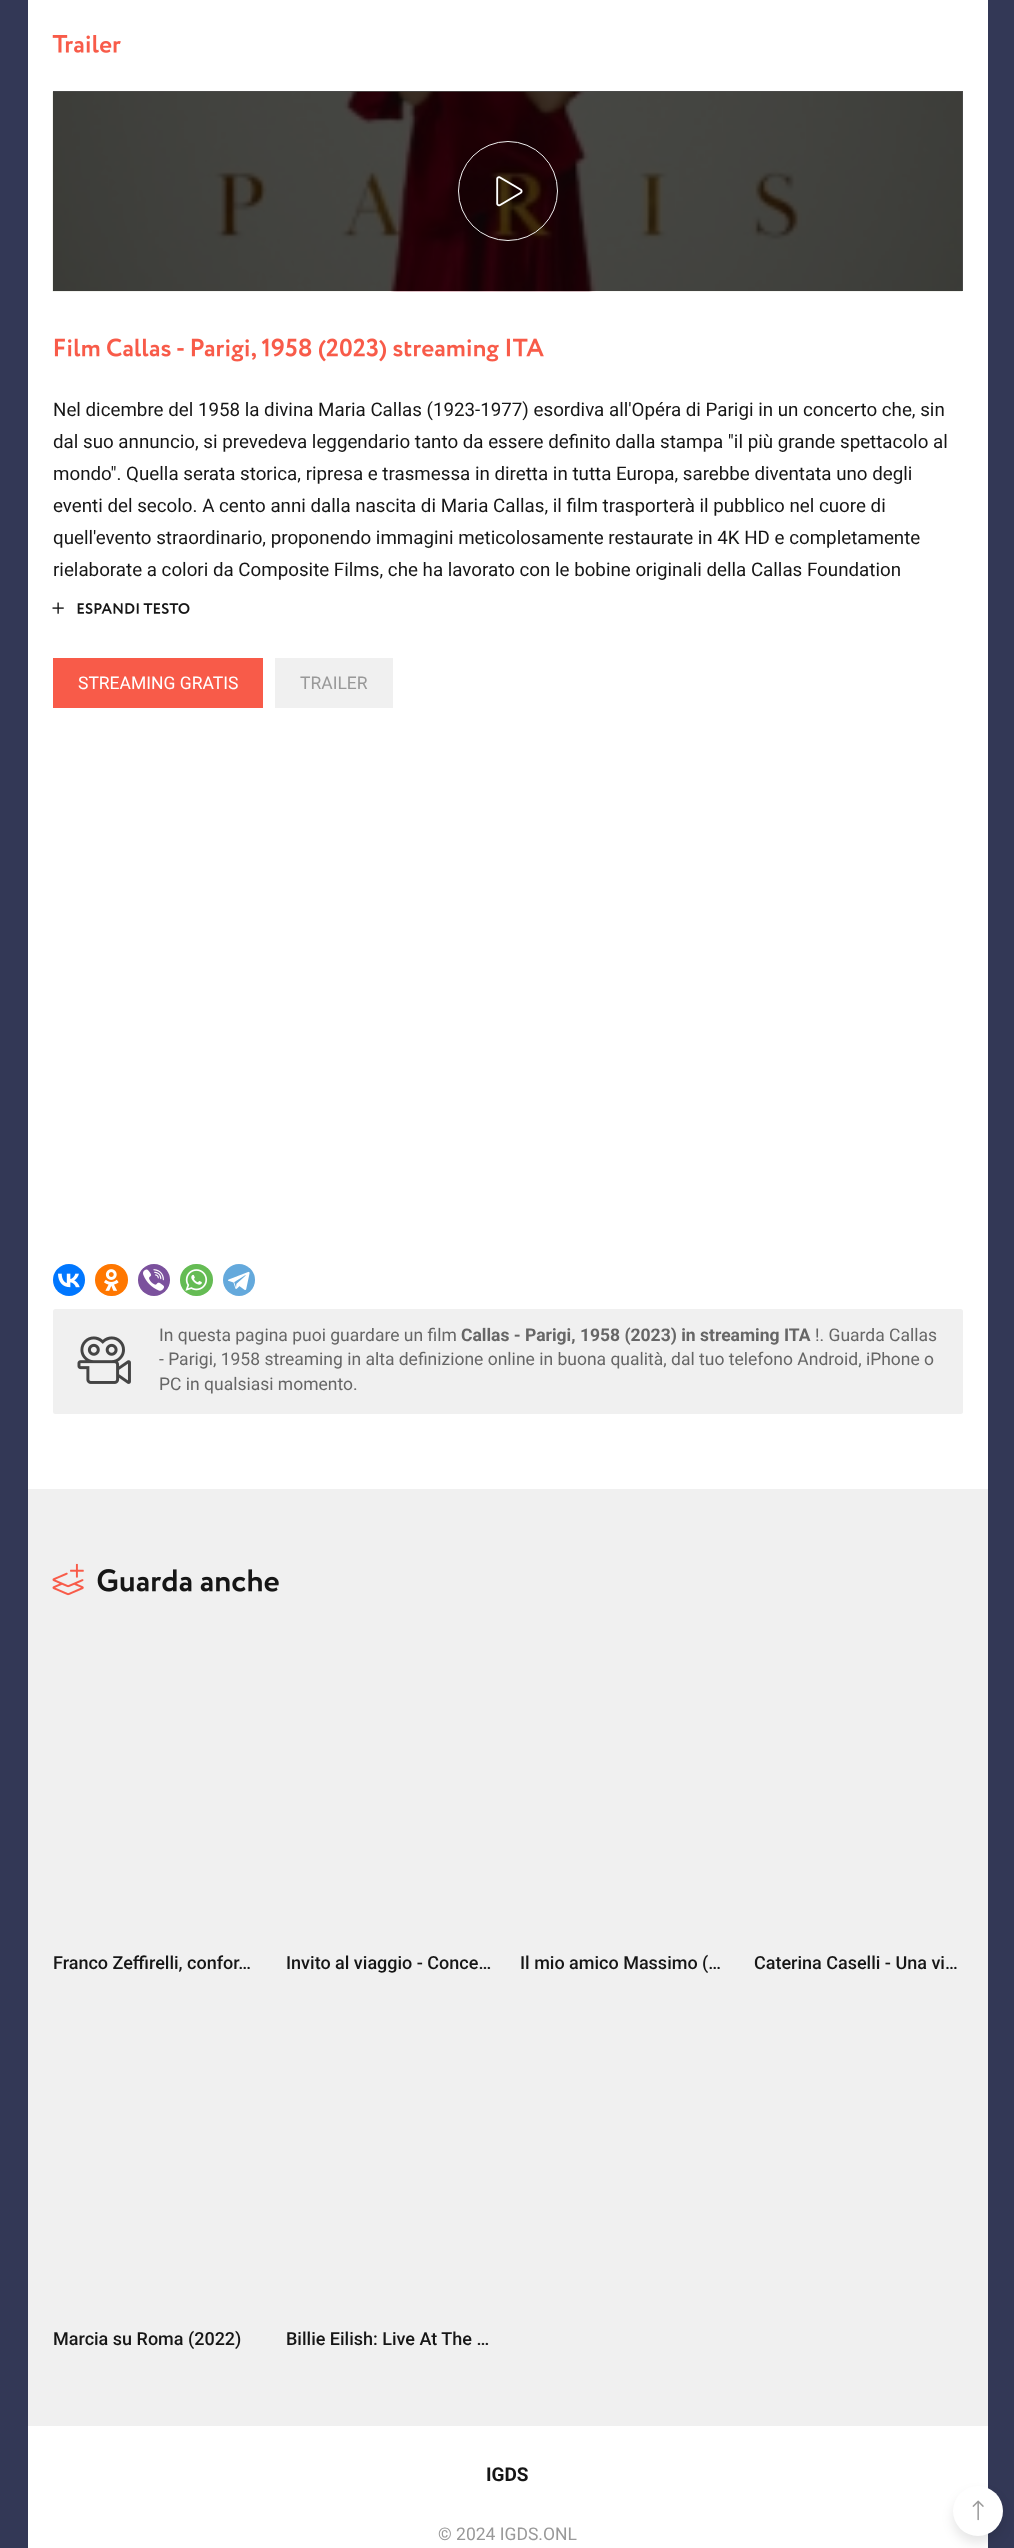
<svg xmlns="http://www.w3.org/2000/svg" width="1014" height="2548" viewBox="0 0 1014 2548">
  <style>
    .t1 { font: 18.75px Roboto; fill: #161616; }
    .t2 { font: 17.5px Roboto; fill: #fff; }
    .t3 { font: 17.5px Roboto; fill: #999; }
    .t4 { font: 17.5px Roboto; fill: #666; }
    .t5 { font: bold 17.5px Roboto; fill: #666; }
    .t6 { font: 500 18px Roboto; fill: #161616; }
    .t7 { font: bold 19px Roboto; fill: #161616; }
  </style>
  <rect width="100%" height="100%" fill="#333856"/>
  <rect x="28" y="0" width="960" height="2548" fill="#fff"/>
  <rect x="53" y="91" width="910" height="200" fill="#4d4d4d"/>
  <image x="52" y="35" width="69" height="18" href="images/1.png"/>
  <image x="52" y="91" width="911" height="201" href="images/2.png"/>
  <circle cx="508" cy="191" r="49.5" fill="none" stroke="#f0f0f0"/>
  <image x="496" y="176" width="27" height="31" href="images/3.png"/>
  <image x="54" y="338" width="490" height="24" href="images/4.png"/>
  <text x="53" y="416" class="t1">Nel dicembre del 1958 la divina Maria Callas (1923-1977) esordiva all'Opéra di Parigi in un concerto che, sin</text>
  <text x="53" y="448" class="t1">dal suo annuncio, si prevedeva leggendario tanto da essere definito dalla stampa "il più grande spettacolo al</text>
  <text x="53" y="480" class="t1">mondo". Quella serata storica, ripresa e trasmessa in diretta in tutta Europa, sarebbe diventata uno degli</text>
  <text x="53" y="512" class="t1">eventi del secolo. A cento anni dalla nascita di Maria Callas, il film trasporterà il pubblico nel cuore di</text>
  <text x="53" y="544" class="t1">quell'evento straordinario, proponendo immagini meticolosamente restaurate in 4K HD e completamente</text>
  <text x="53" y="576" class="t1">rielaborate a colori da Composite Films, che ha lavorato con le bobine originali della Callas Foundation</text>
  <image x="52" y="602" width="12" height="12" href="images/5.png"/>
  <image x="77" y="603" width="113" height="11" href="images/6.png"/>
  <rect x="53" y="658" width="210" height="50" fill="#f85b49"/>
  <text x="78" y="689" class="t2">STREAMING GRATIS</text>
  <rect x="275" y="658" width="118" height="50" fill="#f0f0f0"/>
  <text x="300" y="689" class="t3">TRAILER</text>
  <circle cx="69" cy="1280" r="16" fill="#07f"/>
  <image x="58" y="1273" width="22" height="15" href="images/7.png"/>
  <rect x="95" y="1264" width="33" height="32" rx="16" fill="#f70"/>
  <image x="104" y="1269" width="15" height="22" href="images/8.png"/>
  <circle cx="154" cy="1280" r="16" fill="#7b519d"/>
  <image x="143" y="1269" width="21" height="22" href="images/9.png"/>
  <rect x="180" y="1264" width="33" height="32" rx="16" fill="#65bc54"/>
  <image x="185" y="1269" width="23" height="22" href="images/10.png"/>
  <circle cx="239" cy="1280" r="16" fill="#64a9dc"/>
  <image x="228" y="1271" width="22" height="19" href="images/11.png"/>
  <rect x="53" y="1309" width="910" height="105" rx="2.5" fill="#f0f0f0"/>
  <text x="159" y="1341" class="t4">In questa pagina puoi guardare un film</text>
  <text x="461" y="1341" class="t5">Callas - Parigi, 1958 (2023) in streaming ITA</text>
  <text x="815" y="1341" class="t4">!. Guarda Callas</text>
  <image x="77" y="1336" width="54" height="48" href="images/12.png"/>
  <text x="159" y="1365" class="t4">- Parigi, 1958 streaming in alta definizione online in buona qualità, dal tuo telefono Android, iPhone o</text>
  <text x="159" y="1390" class="t4">PC in qualsiasi momento.</text>
  <rect x="28" y="1489" width="960" height="937" fill="#f0f0f0"/>
  <image x="52" y="1563" width="32" height="33" href="images/13.png"/>
  <image x="97" y="1569" width="182" height="23" href="images/14.png"/>
  <text x="53" y="1969" class="t6">Franco Zeffirelli, confor…</text>
  <text x="286" y="1969" class="t6">Invito al viaggio - Conce…</text>
  <text x="520" y="1969" class="t6">Il mio amico Massimo (…</text>
  <text x="754" y="1969" class="t6">Caterina Caselli - Una vi…</text>
  <text x="53" y="2345" class="t6">Marcia su Roma (2022)</text>
  <text x="286" y="2345" class="t6">Billie Eilish: Live At The …</text>
  <text x="486" y="2481" class="t7">IGDS</text>
  <text x="438" y="2540" class="t3">© 2024 IGDS.ONL</text>
  <rect x="953" y="2493" width="50" height="50" rx="25" fill="#0000001a" filter="blur(6px)"/>
  <circle cx="978" cy="2511" r="25" fill="#fff"/>
  <image x="972" y="2500" width="12" height="21" href="images/15.png"/>
</svg>
